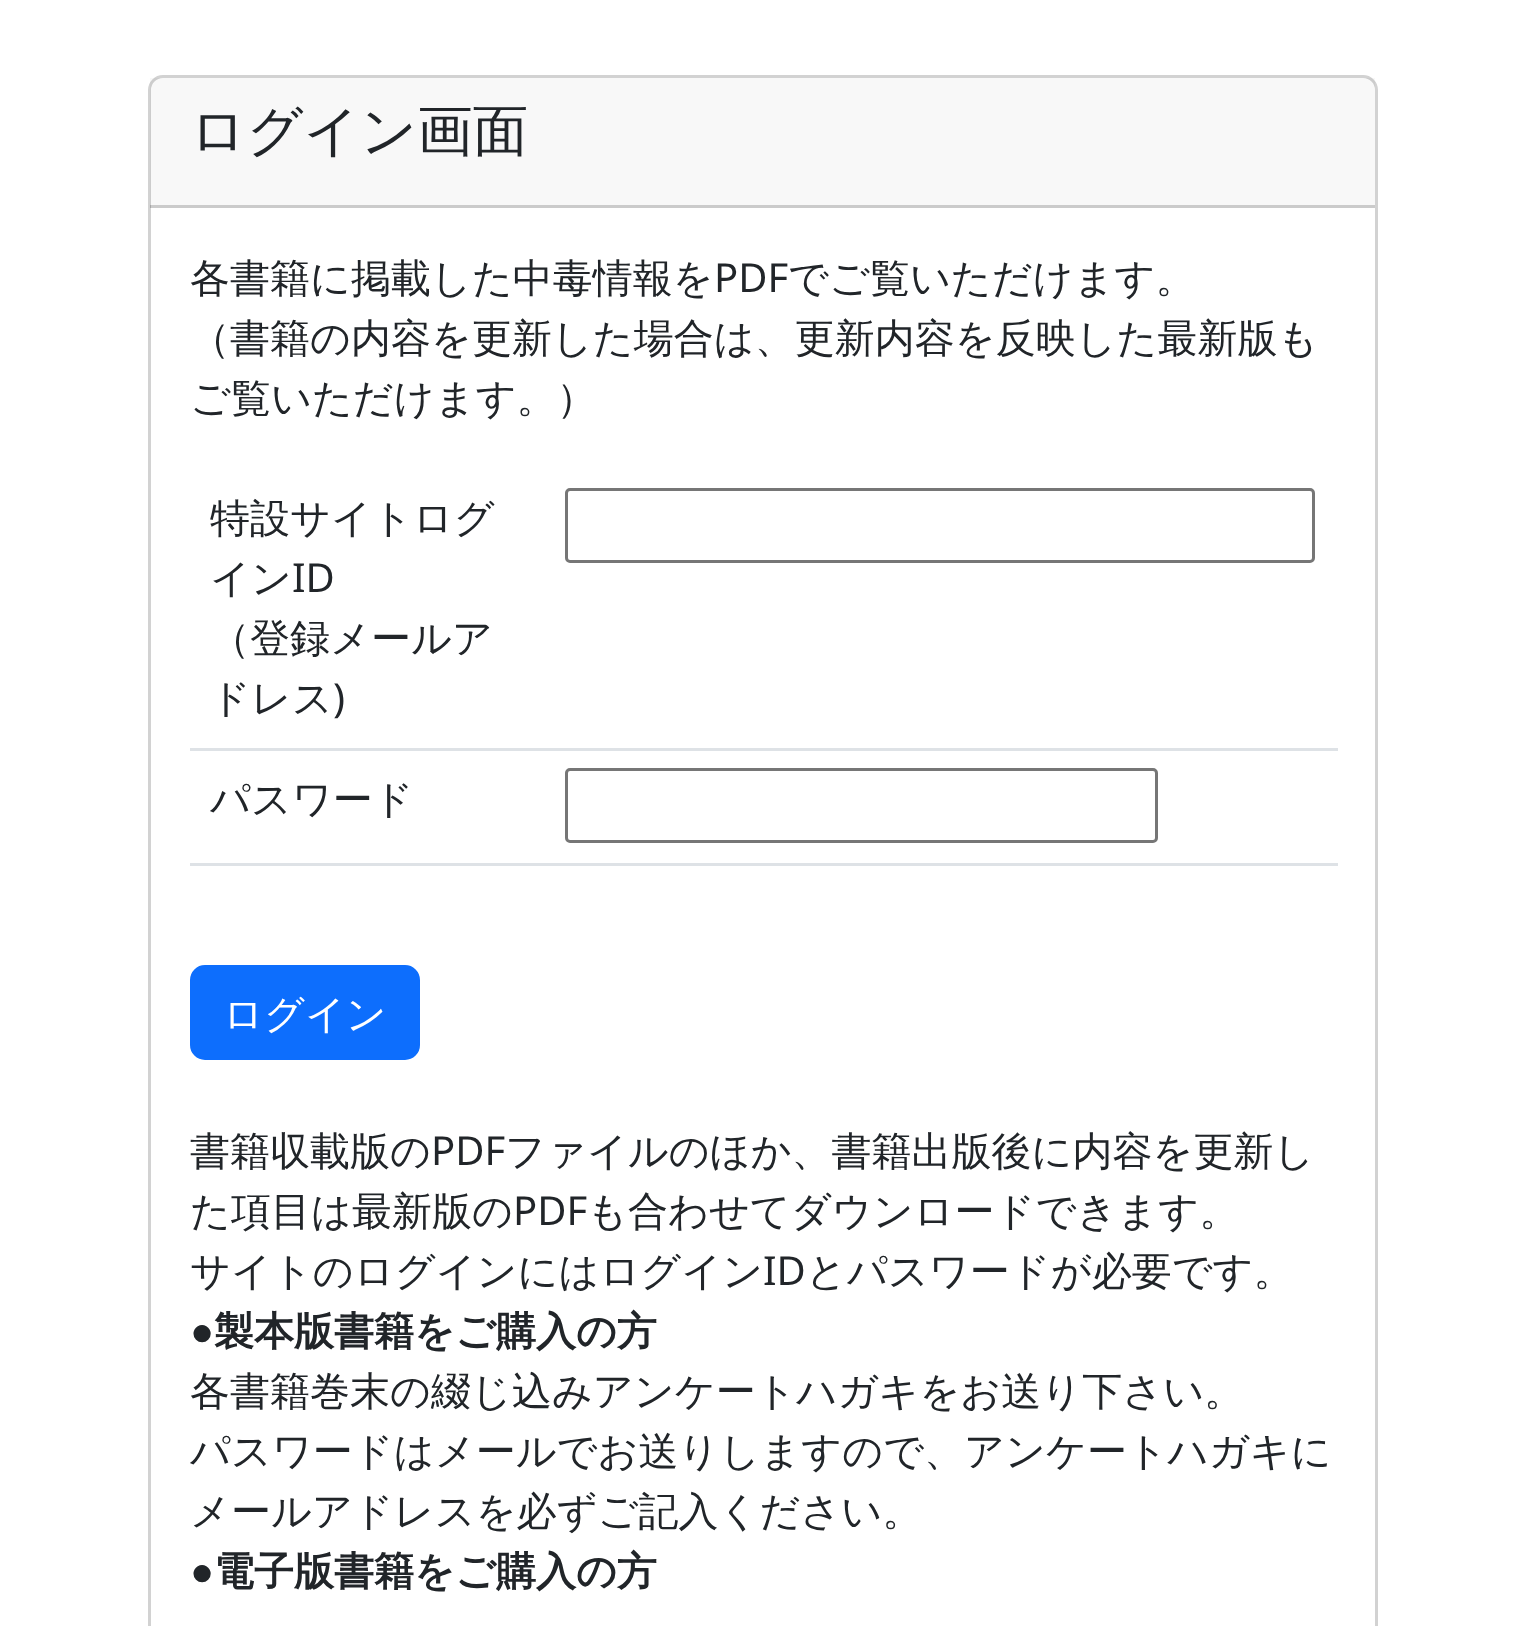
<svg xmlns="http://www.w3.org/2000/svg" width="1523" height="1626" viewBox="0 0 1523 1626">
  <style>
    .t1 { font: 500 55.5px WenQuanYi Zen Hei; fill: #212529; }
    .t2 { font: 500 40px WenQuanYi Zen Hei; fill: #212529; }
    .t3 { font: 40px Noto Sans; fill: #212529; }
    .t4 { font: 500 40px WenQuanYi Zen Hei; fill: #fff; }
    .t5 { font: bold 40px Liberation Sans; fill: #212529; }
    .t6 { font: bold 40px WenQuanYi Zen Hei; fill: #212529; }
  </style>
  <rect width="100%" height="100%" fill="#fff"/>
  <rect x="149.5" y="76.5" width="1227" height="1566" rx="13.5" fill="none" stroke="#d2d2d2" stroke-width="3"/>
  <rect x="150" y="78" width="1225" height="130" fill="#21252908"/>
  <rect x="150" y="205" width="1225" height="3" fill="#0000002e"/>
  <text x="190" y="150" class="t1">ログイン画面</text>
  <text x="190" y="292" class="t2">各書籍に掲載した中毒情報を</text>
  <text x="714" y="292" class="t3">PDF</text>
  <text x="788" y="292" class="t2">でご覧いただけます。</text>
  <text x="190" y="352" class="t2">（書籍の内容を更新した場合は、更新内容を反映した最新版も</text>
  <text x="190" y="412" class="t2">ご覧いただけます。）</text>
  <rect x="190" y="748" width="1148" height="3" fill="#dee2e6"/>
  <rect x="566.5" y="489.5" width="747" height="72" rx="3.5" fill="none" stroke="#767676" stroke-width="3"/>
  <text x="210" y="532" class="t2">特設サイトログ</text>
  <text x="210" y="592" class="t2">イン</text>
  <text x="292" y="592" class="t3">ID</text>
  <text x="210" y="652" class="t2">（登録メールア</text>
  <text x="210" y="712" class="t2">ドレス</text>
  <text x="333" y="712" class="t3">)</text>
  <rect x="190" y="863" width="1148" height="3" fill="#dee2e6"/>
  <rect x="566.5" y="769.5" width="590" height="72" rx="3.5" fill="none" stroke="#767676" stroke-width="3"/>
  <text x="210" y="813" class="t2">パスワード</text>
  <rect x="191.5" y="966.5" width="227" height="92" rx="13.5" fill="#0d6efd" stroke="#0d6efd" stroke-width="3"/>
  <text x="223" y="1028" class="t4">ログイン</text>
  <text x="190" y="1165" class="t2">書籍収載版の</text>
  <text x="431" y="1165" class="t3">PDF</text>
  <text x="505" y="1165" class="t2">ファイルのほか、書籍出版後に内容を更新し</text>
  <text x="190" y="1225" class="t2">た項目は最新版の</text>
  <text x="513" y="1225" class="t3">PDF</text>
  <text x="587" y="1225" class="t2">も合わせてダウンロードできます。</text>
  <text x="190" y="1285" class="t2">サイトのログインにはログイン</text>
  <text x="763" y="1285" class="t3">ID</text>
  <text x="806" y="1285" class="t2">とパスワードが必要です。</text>
  <text x="190" y="1345" class="t5">●</text>
  <text x="214" y="1345" class="t6">製本版書籍をご購入の方</text>
  <text x="190" y="1405" class="t2">各書籍巻末の綴じ込みアンケートハガキをお送り下さい。</text>
  <text x="190" y="1465" class="t2">パスワードはメールでお送りしますので、アンケートハガキに</text>
  <text x="190" y="1525" class="t2">メールアドレスを必ずご記入ください。</text>
  <text x="190" y="1585" class="t5">●</text>
  <text x="214" y="1585" class="t6">電子版書籍をご購入の方</text>
</svg>
